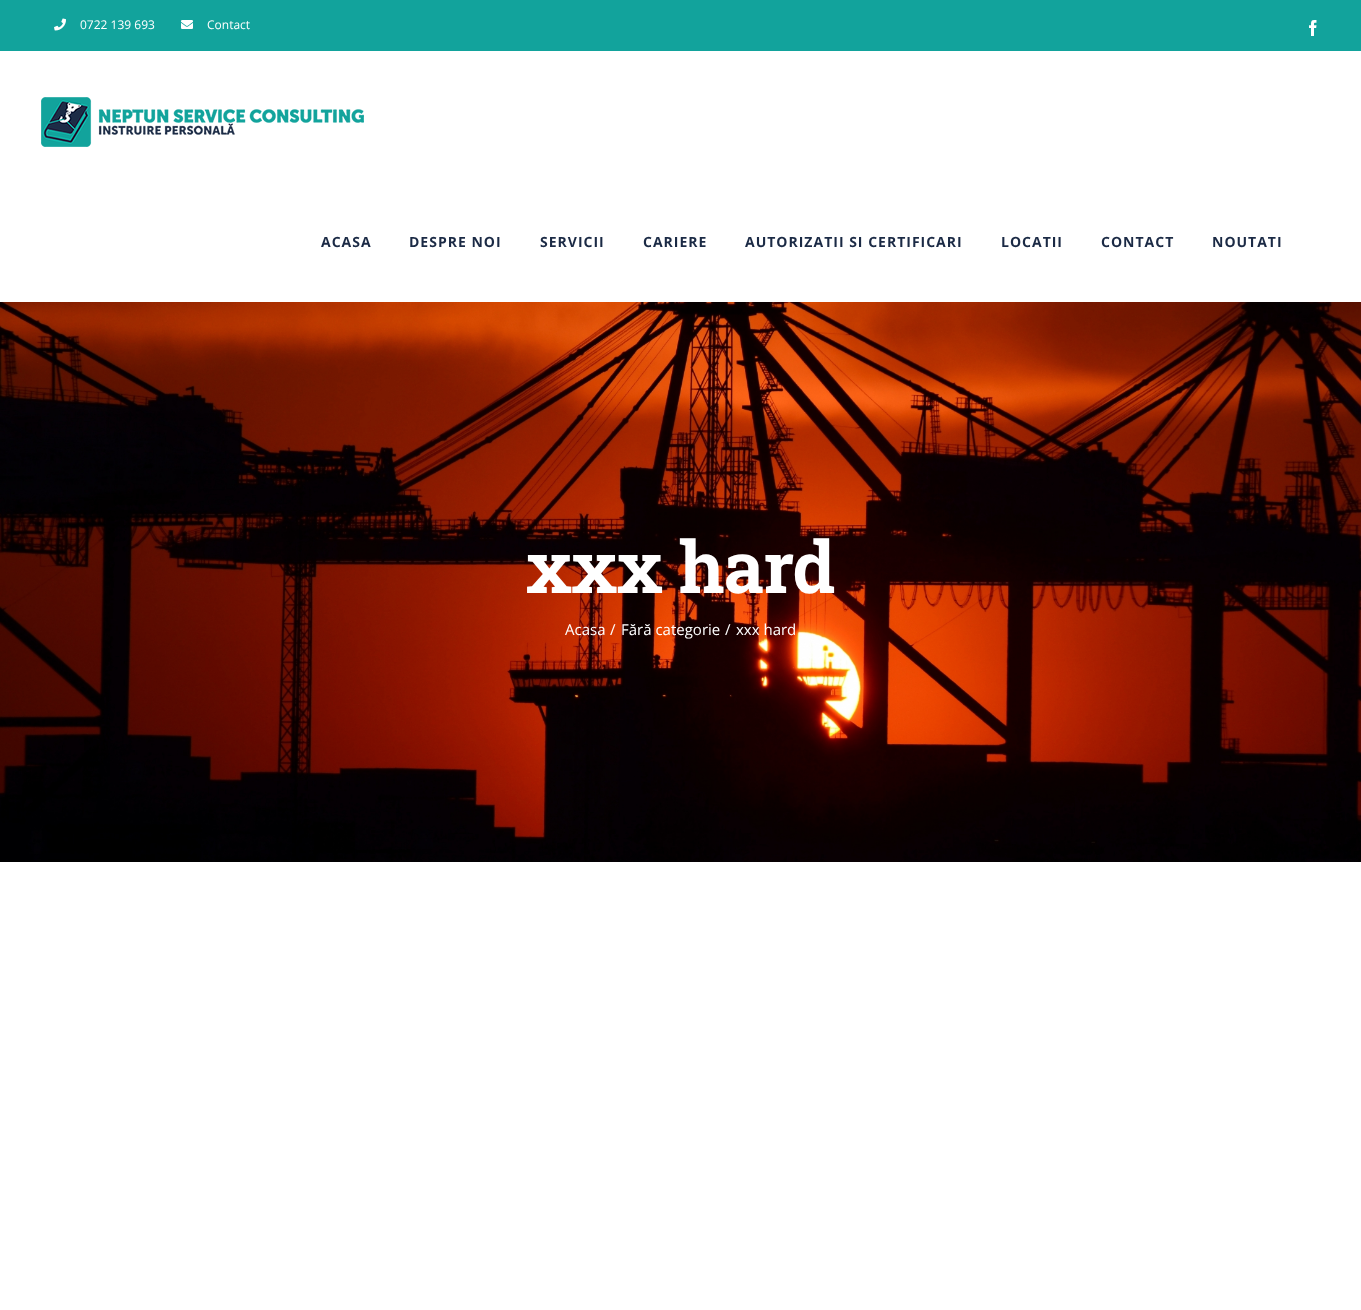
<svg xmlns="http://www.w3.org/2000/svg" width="1361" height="1310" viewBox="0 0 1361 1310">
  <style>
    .t1 { font: 12px Open Sans; fill: #fff; }
    .t2 { font: bold 14px Open Sans; letter-spacing: 1px; fill: #1b2a45; }
    .t3 { font: bold 72px Roboto Slab; letter-spacing: -1px; fill: #fff; }
    .t4 { font: 15px Open Sans; fill: #fff; }
  </style>
  <rect width="100%" height="100%" fill="#fff"/>
  <rect x="0" y="0" width="1361" height="51" fill="#12a39c"/>
  <image x="54" y="18" width="12" height="13" href="images/1.png"/>
  <text x="80" y="29" class="t1">0722 139 693</text>
  <image x="181" y="20" width="12" height="9" href="images/2.png"/>
  <text x="207" y="29" class="t1">Contact</text>
  <image x="1309" y="20" width="8" height="16" href="images/3.png"/>
  <image x="41" y="97" width="323" height="50" href="images/4.png"/>
  <text x="321" y="247" class="t2">ACASA</text>
  <text x="409" y="247" class="t2">DESPRE NOI</text>
  <text x="540" y="247" class="t2">SERVICII</text>
  <text x="643" y="247" class="t2">CARIERE</text>
  <text x="745" y="247" class="t2">AUTORIZATII SI CERTIFICARI</text>
  <text x="1001" y="247" class="t2">LOCATII</text>
  <text x="1101" y="247" class="t2">CONTACT</text>
  <text x="1212" y="247" class="t2">NOUTATI</text>
  <image x="0" y="302" width="1361" height="560" href="images/5.png"/>
  <text x="526" y="593" class="t3">xxx hard</text>
  <text x="565" y="635" class="t4">Acasa</text>
  <text x="610" y="635" class="t4">/</text>
  <text x="621" y="635" class="t4">Fără categorie</text>
  <text x="725" y="635" class="t4">/</text>
  <text x="736" y="635" class="t4">xxx hard</text>
</svg>
